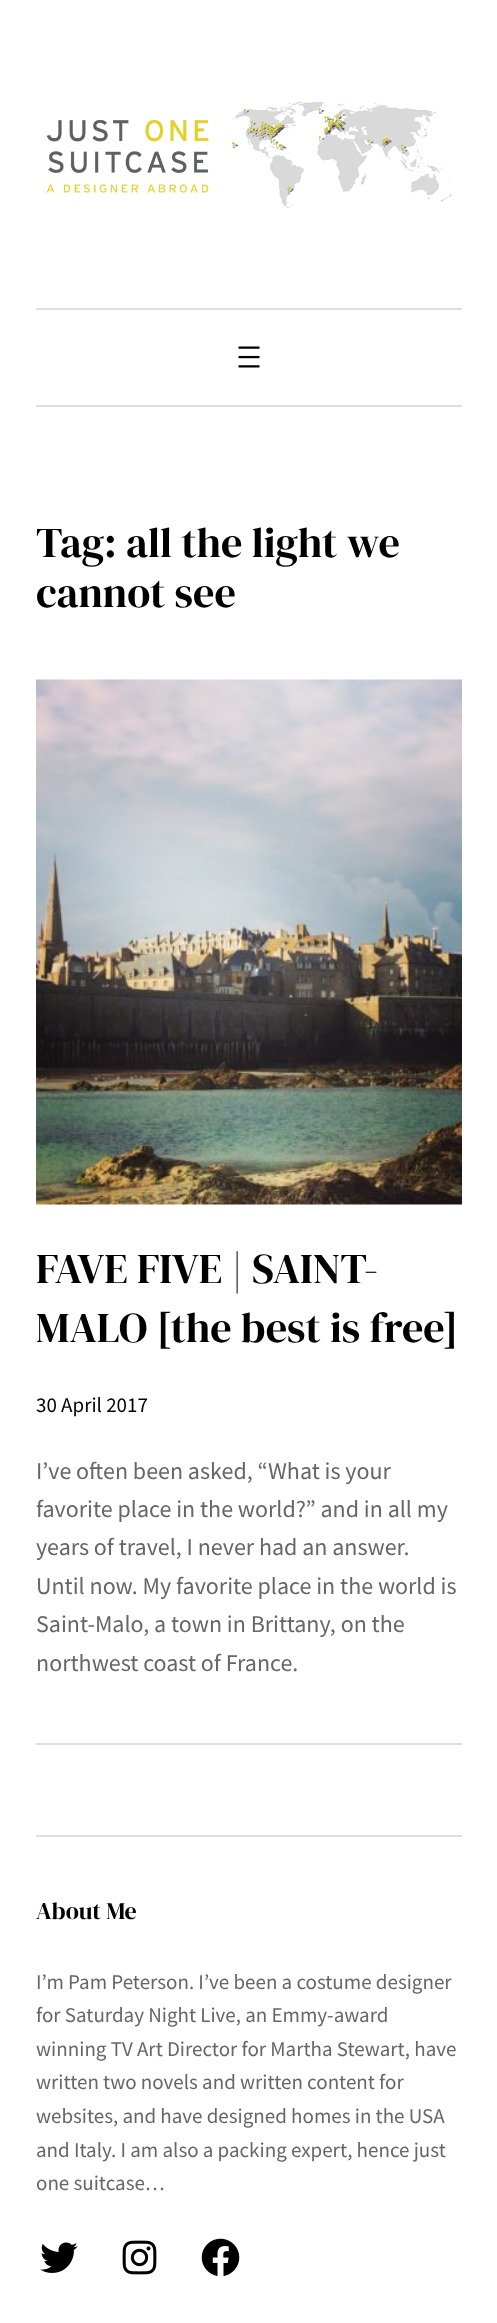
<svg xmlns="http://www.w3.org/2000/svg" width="497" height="2323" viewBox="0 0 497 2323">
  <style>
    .t1 { font: 42.25px DM Serif Display; fill: #000; }
    .t2 { font: 21px Source Sans Pro; fill: #000; }
    .t3 { font: 24px Source Sans Pro; fill: #666; }
    .t4 { font: 24px DM Serif Display; fill: #000; }
    .t5 { font: 21px Source Sans Pro; fill: #666; }
  </style>
  <rect width="100%" height="100%" fill="#fff"/>
  <image x="46" y="101" width="414" height="107" href="images/1.png"/>
  <rect x="36" y="308" width="426" height="2" fill="#dedede"/>
  <rect x="36" y="405" width="426" height="2" fill="#dedede"/>
  <image x="238" y="346" width="22" height="22" href="images/2.png"/>
  <text x="36" y="557" class="t1">Tag: all the light we</text>
  <text x="36" y="607" class="t1">cannot see</text>
  <rect x="36" y="1743" width="426" height="2" fill="#dedede"/>
  <image x="36" y="679" width="426" height="526" href="images/3.png"/>
  <text x="36" y="1283" class="t1">FAVE FIVE | SAINT-</text>
  <text x="36" y="1342" class="t1">MALO [the best is free]</text>
  <text x="36" y="1412" class="t2">30 April 2017</text>
  <text x="36" y="1479" class="t3">I’ve often been asked, “What is your</text>
  <text x="36" y="1517" class="t3">favorite place in the world?” and in all my</text>
  <text x="36" y="1555" class="t3">years of travel, I never had an answer.</text>
  <text x="36" y="1594" class="t3">Until now. My favorite place in the world is</text>
  <text x="36" y="1632" class="t3">Saint-Malo, a town in Brittany, on the</text>
  <text x="36" y="1671" class="t3">northwest coast of France.</text>
  <rect x="36" y="1835" width="426" height="2" fill="#dedede"/>
  <text x="36" y="1919" class="t4">About Me</text>
  <text x="36" y="1989" class="t5">I’m Pam Peterson. I’ve been a costume designer</text>
  <text x="36" y="2022" class="t5">for Saturday Night Live, an Emmy-award</text>
  <text x="36" y="2056" class="t5">winning TV Art Director for Martha Stewart, have</text>
  <text x="36" y="2089" class="t5">written two novels and written content for</text>
  <text x="36" y="2123" class="t5">websites, and have designed homes in the USA</text>
  <text x="36" y="2157" class="t5">and Italy. I am also a packing expert, hence just</text>
  <text x="36" y="2190" class="t5">one suitcase…</text>
  <image x="40" y="2242" width="38" height="31" href="images/4.png"/>
  <image x="122" y="2240" width="35" height="35" href="images/5.png"/>
  <image x="201" y="2238" width="39" height="38" href="images/6.png"/>
</svg>
